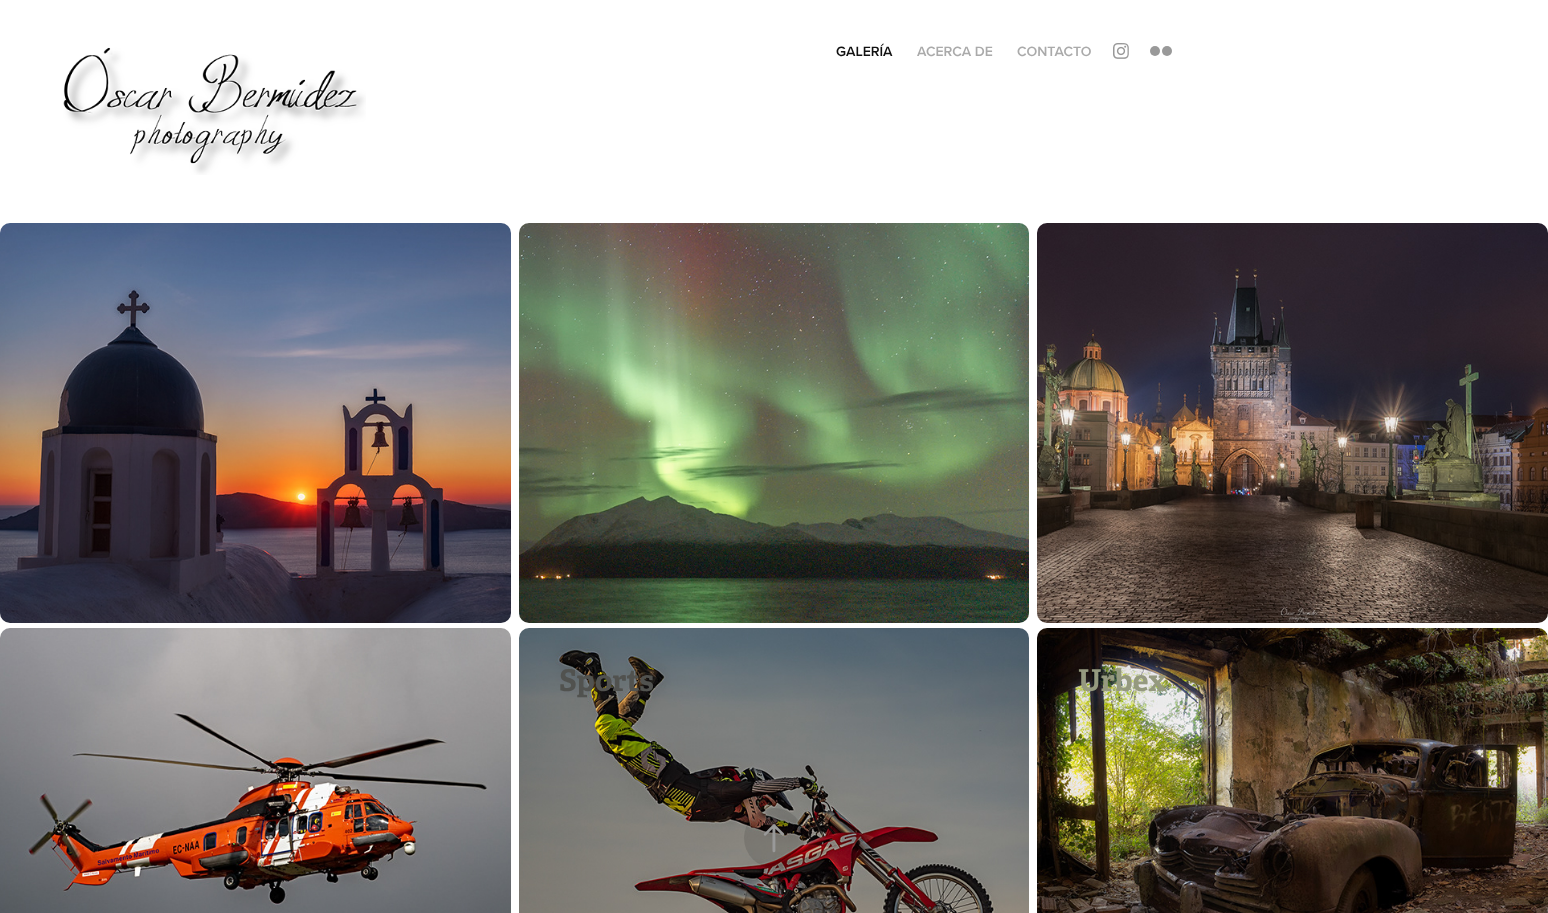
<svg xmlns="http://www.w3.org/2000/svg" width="1548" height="913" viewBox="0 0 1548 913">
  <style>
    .t1 { font: 600 14px Proxima Nova; fill: #111; }
    .t2 { font: 600 14px Proxima Nova; fill: #aaa; }
    .t3 { font: bold 30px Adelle; fill: #51524f; }
    .t4 { font: bold 30px Adelle; fill: #95997f; }
  </style>
  <rect width="100%" height="100%" fill="#fff"/>
  <image x="63" y="47" width="303" height="128" href="images/1.png"/>
  <text x="836" y="56" class="t1">GALERÍA</text>
  <text x="917" y="56" class="t2">ACERCA DE</text>
  <text x="1017" y="56" class="t2">CONTACTO</text>
  <image x="1113" y="43" width="16" height="16" href="images/2.png"/>
  <circle cx="1155" cy="51" r="5" fill="#999"/>
  <circle cx="1167" cy="51" r="5" fill="#999"/>
  <image x="0" y="223" width="511" height="400" href="images/3.png"/>
  <image x="519" y="223" width="510" height="400" href="images/4.png"/>
  <image x="1037" y="223" width="511" height="400" href="images/5.png"/>
  <image x="0" y="628" width="511" height="285" href="images/6.png"/>
  <image x="519" y="628" width="510" height="285" href="images/7.png"/>
  <text x="559" y="691" class="t3">Sports</text>
  <image x="1037" y="628" width="511" height="285" href="images/8.png"/>
  <text x="1078" y="691" class="t4">Urbex</text>
  <circle cx="774" cy="838" r="30" fill="#0000001c"/>
  <image x="763" y="824" width="22" height="29" href="images/9.png"/>
</svg>
